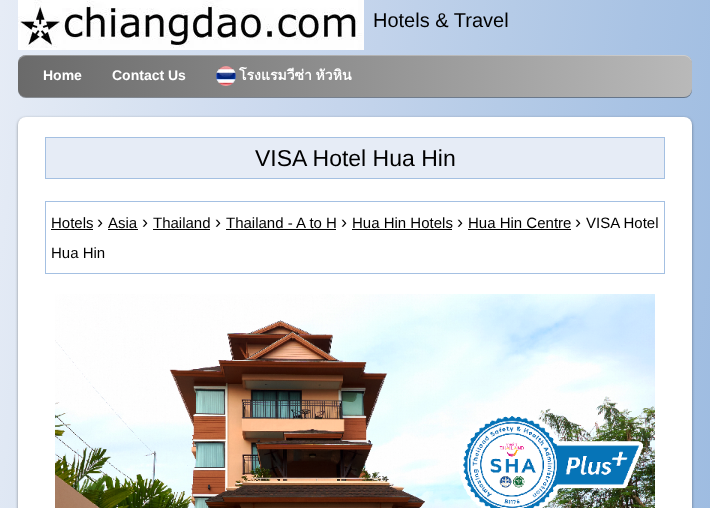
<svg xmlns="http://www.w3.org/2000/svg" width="710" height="508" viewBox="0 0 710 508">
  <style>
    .t1 { font: 20px Liberation Sans; fill: #000; }
    .t2 { font: bold 14px Liberation Sans; fill: #fff; }
    .t3 { font: bold 14px Loma; fill: #fff; }
    .t4 { font: 23px Liberation Sans; fill: #000; }
    .t5 { font: 15px Liberation Sans; fill: #000; }
    .t6 { font: 18px Liberation Sans; fill: #000; }
  </style>
  <defs>
    <linearGradient id="g1" gradientUnits="userSpaceOnUse" x1="-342" y1="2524" x2="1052" y2="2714"><stop offset="0" stop-color="#e6ecf6"/><stop offset="0.09" stop-color="#dae4f2"/><stop offset="0.18" stop-color="#cedbef"/><stop offset="0.27" stop-color="#c2d3eb"/><stop offset="0.36" stop-color="#b5cbe7"/><stop offset="0.45" stop-color="#a9c3e4"/><stop offset="0.55" stop-color="#9ebce1"/><stop offset="0.64" stop-color="#92b4de"/><stop offset="0.73" stop-color="#84abdb"/><stop offset="0.82" stop-color="#76a3d7"/><stop offset="0.91" stop-color="#669ad4"/><stop offset="1" stop-color="#5692d0"/></linearGradient>
    <linearGradient id="g2" gradientUnits="userSpaceOnUse" x1="692" y1="76" x2="18" y2="76"><stop offset="0" stop-color="#b9b9b9"/><stop offset="1" stop-color="#6a6a6a"/></linearGradient>
  </defs>
  <rect width="100%" height="100%" fill="#fff"/>
  <rect x="0" y="0" width="710" height="508" fill="url(#g1)"/>
  <image x="18" y="0" width="346" height="50" href="images/1.png"/>
  <text x="373" y="27" class="t1">Hotels &amp; Travel</text>
  <rect x="18" y="56" width="674" height="42" rx="8" fill="#00000066" filter="blur(0.5px)"/>
  <rect x="18" y="55" width="674" height="42" rx="8" fill="url(#g2)"/>
  <path d="M26 56H684C688 56 692 60 692 64V63C692 59 688 55 684 55H26C22 55 18 59 18 63V64C18 60 22 56 26 56Z" fill="#ffffff4d"/>
  <text x="43" y="80" class="t2">Home</text>
  <text x="112" y="80" class="t2">Contact Us</text>
  <image x="216" y="66" width="20" height="20" href="images/2.png"/>
  <text x="239" y="80" word-spacing="-1" class="t3">โรงแรมวีซ่า หัวหิน</text>
  <rect x="18" y="118" width="674" height="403" rx="8" fill="#00000066" filter="blur(1.5px)"/>
  <rect x="18" y="117" width="674" height="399" rx="8" fill="#fff"/>
  <rect x="45.5" y="137.5" width="619" height="41" fill="#e6ecf6" stroke="#a4c0e2"/>
  <text x="255" y="166" class="t4">VISA Hotel Hua Hin</text>
  <rect x="45.5" y="201.5" width="619" height="72" fill="none" stroke="#a4c0e2"/>
  <text x="51" y="228" class="t5">Hotels</text>
  <rect x="51" y="229" width="42" height="1" fill="#000"/>
  <text x="97" y="228" class="t6">›</text>
  <text x="108" y="228" class="t5">Asia</text>
  <rect x="108" y="229" width="30" height="1" fill="#000"/>
  <text x="142" y="228" class="t6">›</text>
  <text x="153" y="228" class="t5">Thailand</text>
  <rect x="153" y="229" width="57" height="1" fill="#000"/>
  <text x="215" y="228" class="t6">›</text>
  <text x="226" y="228" class="t5">Thailand - A to H</text>
  <rect x="226" y="229" width="110" height="1" fill="#000"/>
  <text x="341" y="228" class="t6">›</text>
  <text x="352" y="228" class="t5">Hua Hin Hotels</text>
  <rect x="352" y="229" width="100" height="1" fill="#000"/>
  <text x="457" y="228" class="t6">›</text>
  <text x="468" y="228" class="t5">Hua Hin Centre</text>
  <rect x="468" y="229" width="103" height="1" fill="#000"/>
  <text x="575" y="228" class="t6">›</text>
  <text x="586" y="228" class="t5">VISA Hotel</text>
  <text x="51" y="258" class="t5">Hua Hin</text>
  <image x="55" y="294" width="600" height="214" href="images/3.png"/>
</svg>
